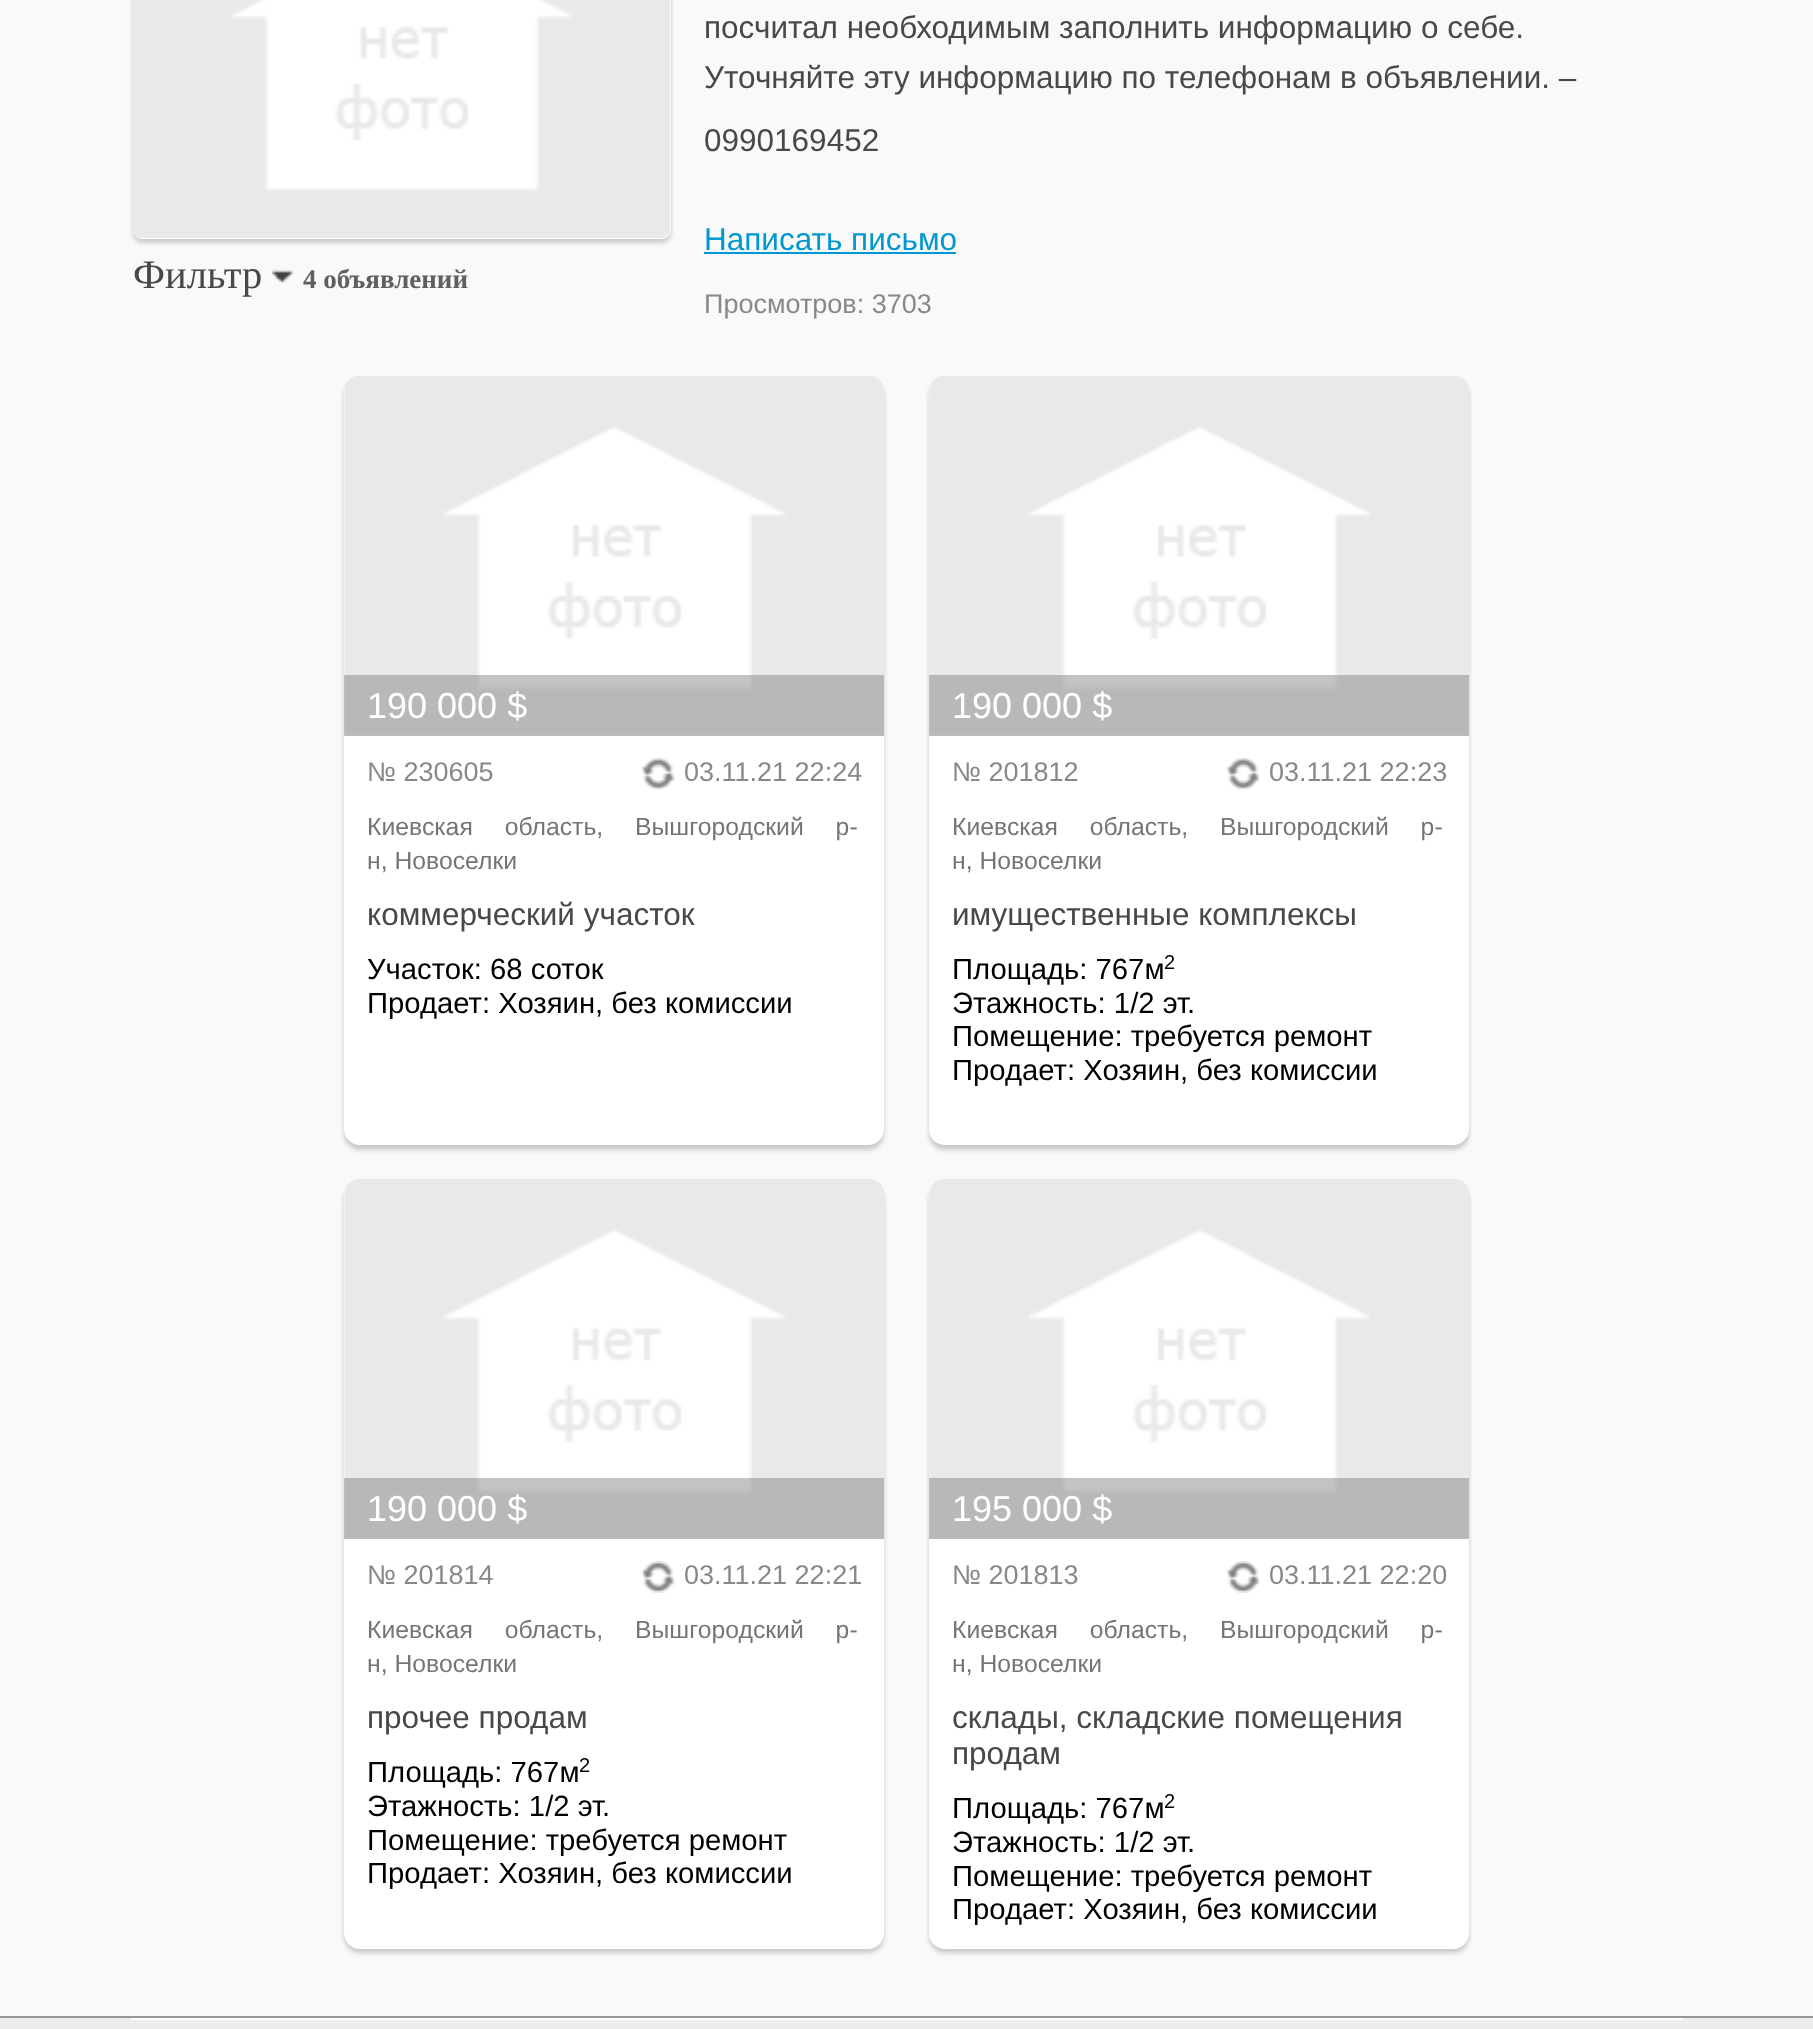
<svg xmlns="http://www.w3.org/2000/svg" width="1813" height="2029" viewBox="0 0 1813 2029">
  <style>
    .t1 { font: 40.5px Liberation Serif; fill: #484848; }
    .t2 { font: bold 27px Liberation Serif; fill: #5f5f5f; }
    .t3 { font: 31.5px Liberation Sans; fill: #484848; }
    .t4 { font: 31.5px Liberation Sans; fill: #0098d0; }
    .t5 { font: 27px Liberation Sans; fill: #888; }
    .t6 { font: 36px Liberation Sans; fill: #fff; }
    .t7 { font: 24.75px Liberation Sans; fill: #757575; }
    .t8 { font: 29.25px Liberation Sans; fill: #000; }
    .t9 { font: 20px Liberation Sans; fill: #000; }
  </style>
  <rect width="100%" height="100%" fill="#f9f9f9"/>
  <rect x="133" y="-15" width="538" height="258" rx="9" fill="#cacaca" filter="blur(2px)"/>
  <rect x="133" y="-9" width="538" height="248" rx="9" fill="#fff"/>
  <image x="133" y="0" width="538" height="238" href="images/1.png"/>
  <text x="133" y="288" class="t1">Фильтр</text>
  <image x="272" y="269" width="21" height="15" href="images/2.png"/>
  <text x="303" y="288" class="t2">4 объявлений</text>
  <text x="704" y="38" class="t3">посчитал необходимым заполнить информацию о себе.</text>
  <text x="704" y="88" class="t3">Уточняйте эту информацию по телефонам в объявлении. –</text>
  <text x="704" y="151" class="t3">0990169452</text>
  <text x="704" y="250" class="t4">Написать письмо</text>
  <rect x="704" y="252" width="252" height="2" fill="#0098d0"/>
  <text x="704" y="313" class="t5">Просмотров: 3703</text>
  <rect x="344" y="380" width="540" height="770" rx="16" fill="#cacaca" filter="blur(2px)"/>
  <rect x="344" y="376" width="540" height="769" rx="16" fill="#fff"/>
  <image x="344" y="376" width="540" height="360" href="images/3.png"/>
  <rect x="344" y="675" width="540" height="61" fill="#88888880"/>
  <text x="367" y="718" class="t6">190 000 $</text>
  <text x="367" y="781" class="t5">№ 230605</text>
  <image x="641" y="758" width="34" height="32" href="images/4.png"/>
  <text x="684" y="781" class="t5">03.11.21 22:24</text>
  <text x="367" y="835" word-spacing="25" class="t7">Киевская область, Вышгородский р-</text>
  <text x="367" y="869" class="t7">н, Новоселки</text>
  <text x="367" y="925" class="t3">коммерческий участок</text>
  <text x="367" y="979" class="t8">Участок: 68 соток</text>
  <text x="367" y="1013" class="t8">Продает: Хозяин, без комиссии</text>
  <rect x="929" y="380" width="540" height="770" rx="16" fill="#cacaca" filter="blur(2px)"/>
  <rect x="929" y="376" width="540" height="769" rx="16" fill="#fff"/>
  <image x="929" y="376" width="540" height="360" href="images/3.png"/>
  <rect x="929" y="675" width="540" height="61" fill="#88888880"/>
  <text x="952" y="718" class="t6">190 000 $</text>
  <text x="952" y="781" class="t5">№ 201812</text>
  <image x="1226" y="758" width="34" height="32" href="images/4.png"/>
  <text x="1269" y="781" class="t5">03.11.21 22:23</text>
  <text x="952" y="835" word-spacing="25" class="t7">Киевская область, Вышгородский р-</text>
  <text x="952" y="869" class="t7">н, Новоселки</text>
  <text x="952" y="925" class="t3">имущественные комплексы</text>
  <text x="952" y="979" class="t8">Площадь: 767м</text>
  <text x="1164" y="969" class="t9">2</text>
  <text x="952" y="1013" class="t8">Этажность: 1/2 эт.</text>
  <text x="952" y="1046" class="t8">Помещение: требуется ремонт</text>
  <text x="952" y="1080" class="t8">Продает: Хозяин, без комиссии</text>
  <rect x="344" y="1184" width="540" height="769" rx="16" fill="#cacaca" filter="blur(2px)"/>
  <rect x="344" y="1179" width="540" height="770" rx="16" fill="#fff"/>
  <image x="344" y="1179" width="540" height="360" href="images/5.png"/>
  <rect x="344" y="1478" width="540" height="61" fill="#88888880"/>
  <text x="367" y="1521" class="t6">190 000 $</text>
  <text x="367" y="1584" class="t5">№ 201814</text>
  <image x="641" y="1561" width="34" height="32" href="images/6.png"/>
  <text x="684" y="1584" class="t5">03.11.21 22:21</text>
  <text x="367" y="1638" word-spacing="25" class="t7">Киевская область, Вышгородский р-</text>
  <text x="367" y="1672" class="t7">н, Новоселки</text>
  <text x="367" y="1728" class="t3">прочее продам</text>
  <text x="367" y="1782" class="t8">Площадь: 767м</text>
  <text x="579" y="1772" class="t9">2</text>
  <text x="367" y="1816" class="t8">Этажность: 1/2 эт.</text>
  <text x="367" y="1850" class="t8">Помещение: требуется ремонт</text>
  <text x="367" y="1883" class="t8">Продает: Хозяин, без комиссии</text>
  <rect x="929" y="1184" width="540" height="769" rx="16" fill="#cacaca" filter="blur(2px)"/>
  <rect x="929" y="1179" width="540" height="770" rx="16" fill="#fff"/>
  <image x="929" y="1179" width="540" height="360" href="images/5.png"/>
  <rect x="929" y="1478" width="540" height="61" fill="#88888880"/>
  <text x="952" y="1521" class="t6">195 000 $</text>
  <text x="952" y="1584" class="t5">№ 201813</text>
  <image x="1226" y="1561" width="34" height="32" href="images/6.png"/>
  <text x="1269" y="1584" class="t5">03.11.21 22:20</text>
  <text x="952" y="1638" word-spacing="25" class="t7">Киевская область, Вышгородский р-</text>
  <text x="952" y="1672" class="t7">н, Новоселки</text>
  <text x="952" y="1728" class="t3">склады, cкладские помещения</text>
  <text x="952" y="1764" class="t3">продам</text>
  <text x="952" y="1818" class="t8">Площадь: 767м</text>
  <text x="1164" y="1808" class="t9">2</text>
  <text x="952" y="1852" class="t8">Этажность: 1/2 эт.</text>
  <text x="952" y="1886" class="t8">Помещение: требуется ремонт</text>
  <text x="952" y="1919" class="t8">Продает: Хозяин, без комиссии</text>
  <image x="0" y="2018" width="1813" height="11" href="images/7.png"/>
  <rect x="0" y="2016" width="1813" height="2" fill="#969696"/>
  <rect x="131" y="2018" width="1552" height="2" fill="#fff"/>
</svg>
